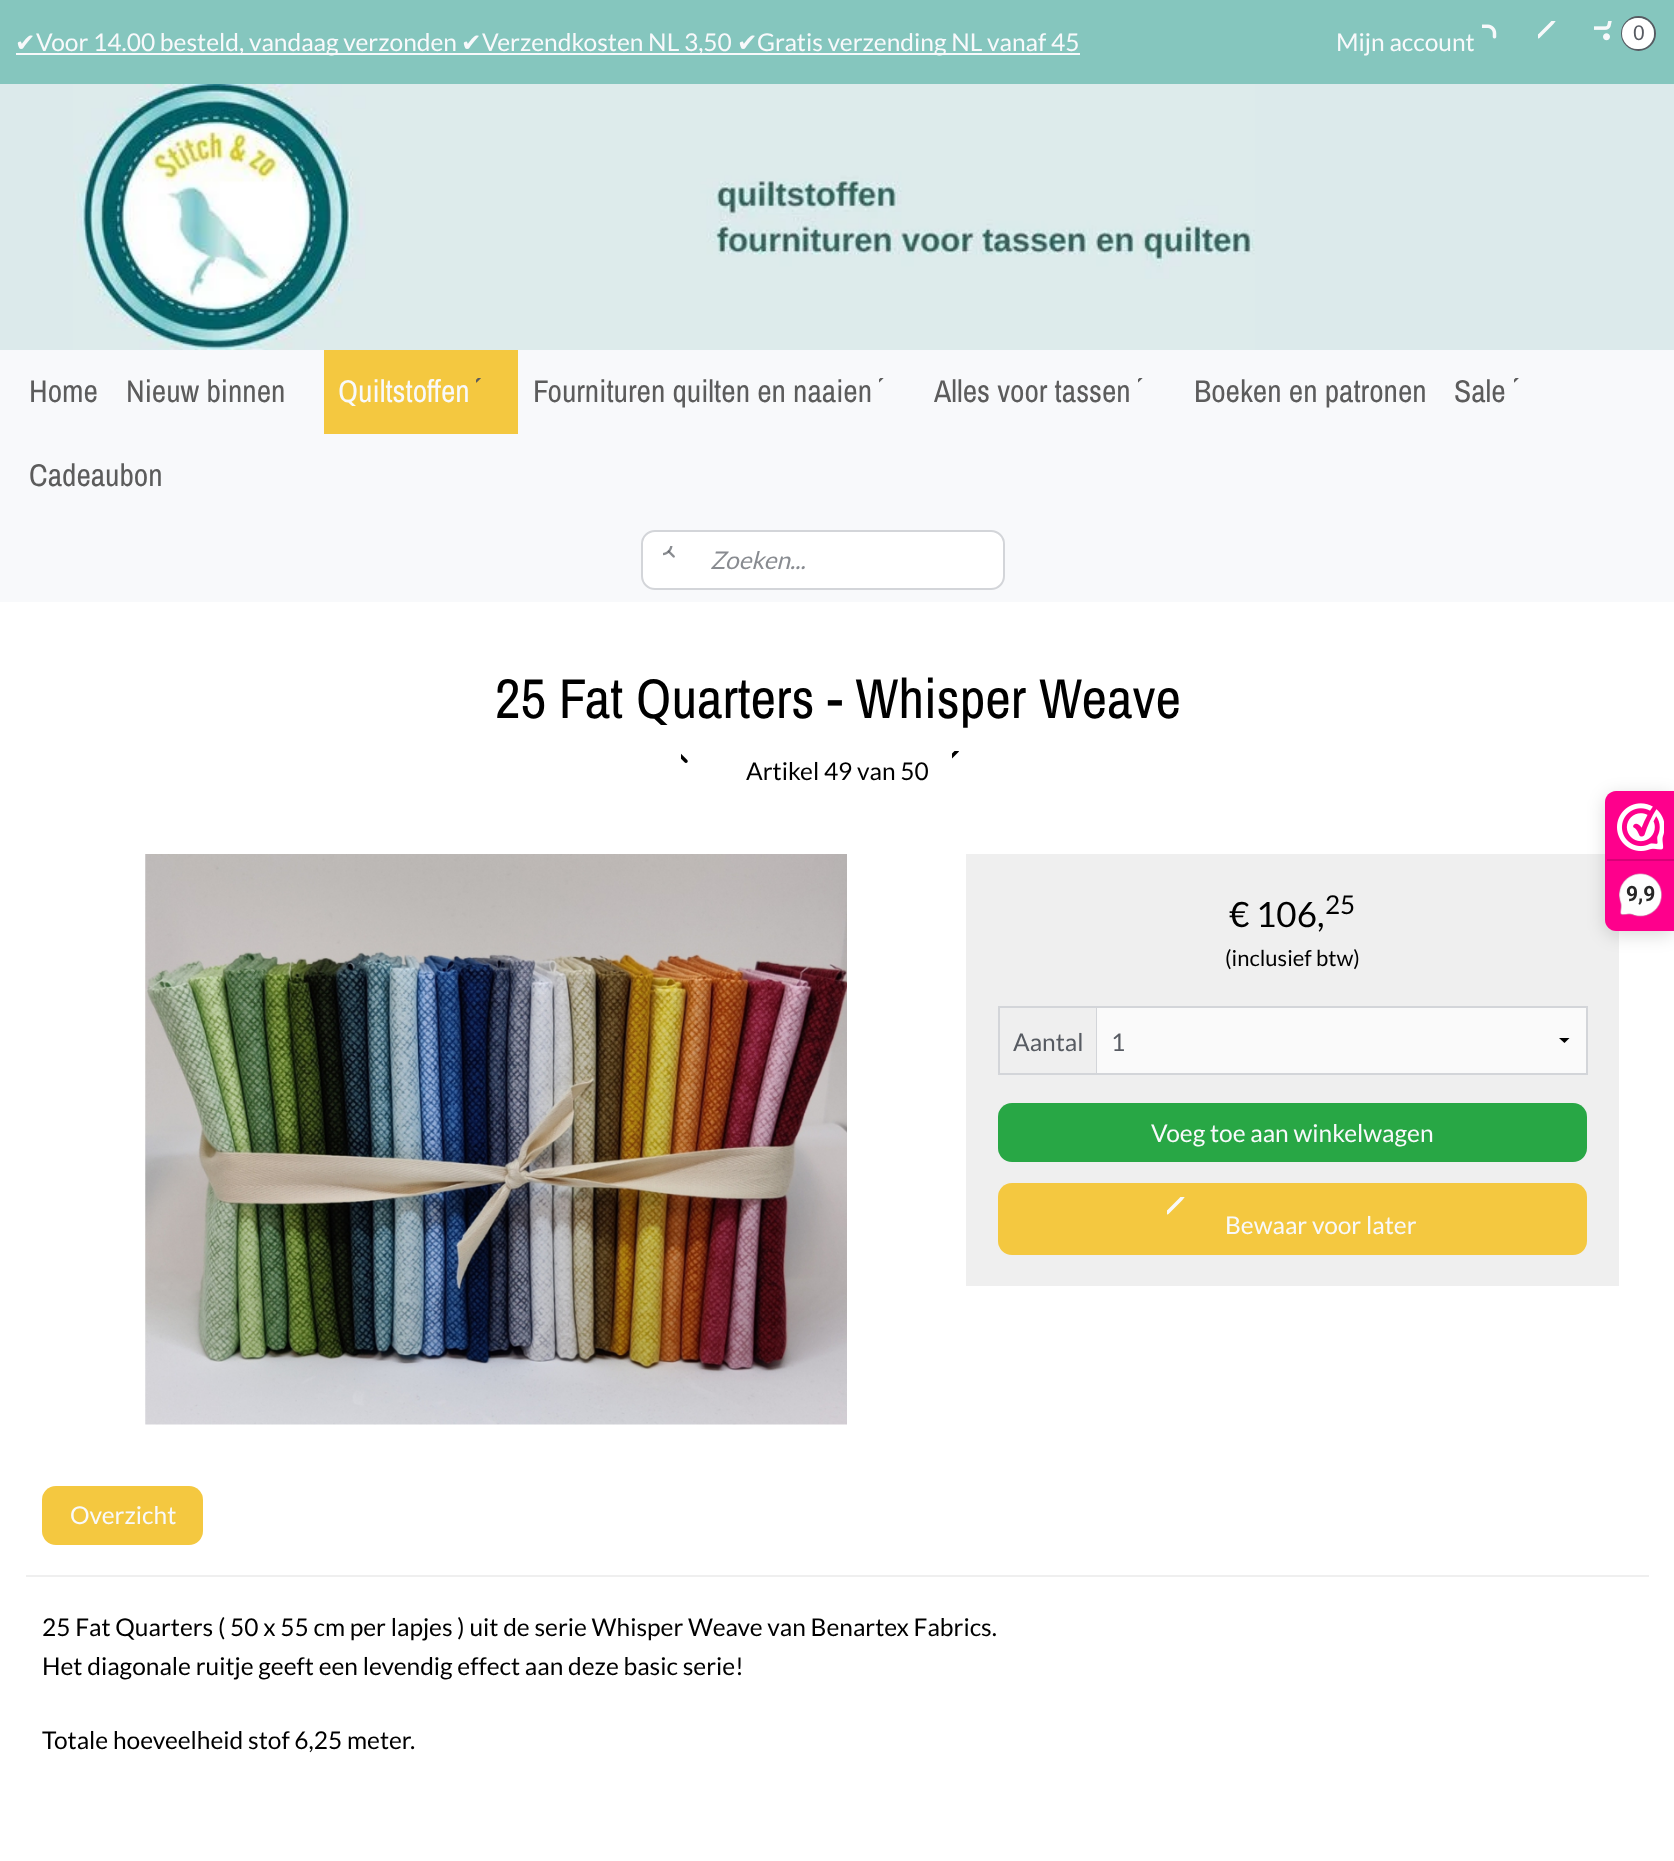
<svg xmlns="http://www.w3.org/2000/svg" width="1674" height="1861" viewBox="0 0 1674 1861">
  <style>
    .t1 { font: 24.5px DejaVu Sans; fill: #f8f9fb; }
    .t2 { font: 24.5px Lato; fill: #f8f9fb; }
    .t3 { font: 21px Liberation Sans; fill: #575b62; }
    .t4 { font: 31.5px Archivo Narrow; fill: #5c5c5c; }
    .t5 { font: 31.5px Archivo Narrow; fill: #f8f9fb; }
    .t6 { font: italic 24.5px Lato; fill: #898c91; }
    .t7 { font: 56px Archivo Narrow; fill: #000; }
    .t8 { font: 24.5px Lato; fill: #000; }
    .t9 { font: 35px Lato; fill: #000; }
    .t10 { font: 26px Lato; fill: #000; }
    .t11 { font: 22px Lato; fill: #000; }
    .t12 { font: 24.5px Lato; fill: #575b62; }
    .t13 { font: bold 21px Roboto; fill: #272626; }
  </style>
  <rect width="100%" height="100%" fill="#fff"/>
  <rect x="0" y="84" width="1674" height="266" fill="#dceaeb"/>
  <rect x="0" y="0" width="1674" height="84" fill="#85c6be"/>
  <text x="15" y="51" class="t1">✔</text>
  <rect x="16" y="53" width="1064" height="2" fill="#f8f9fb"/>
  <text x="36" y="51" class="t2">Voor 14.00 besteld, vandaag verzonden</text>
  <text x="461" y="51" class="t1">✔</text>
  <text x="482" y="51" class="t2">Verzendkosten NL 3,50</text>
  <text x="737" y="51" class="t1">✔</text>
  <text x="757" y="51" class="t2">Gratis verzending NL vanaf 45</text>
  <image x="1538" y="21" width="18" height="18" href="images/1.png"/>
  <image x="1482" y="24" width="15" height="15" href="images/2.png"/>
  <text x="1336" y="51" class="t2">Mijn account</text>
  <image x="1594" y="21" width="18" height="20" href="images/3.png"/>
  <circle cx="1638.5" cy="33.5" r="16.5" fill="none" stroke="#575b62" stroke-width="2"/>
  <rect x="1622" y="18" width="32" height="31" rx="15.5" fill="#fff"/>
  <text x="1633" y="40" class="t3">0</text>
  <image x="73" y="84" width="1182" height="266" href="images/4.png"/>
  <rect x="0" y="350" width="1674" height="252" fill="#f8f9fb"/>
  <text x="29" y="402" class="t4">Home</text>
  <text x="126" y="402" class="t4">Nieuw binnen</text>
  <rect x="324" y="350" width="194" height="84" fill="#f4c840"/>
  <text x="338" y="402" class="t5">Quiltstoffen</text>
  <image x="476" y="378" width="5" height="5" href="images/5.png"/>
  <text x="533" y="402" class="t4">Fournituren quilten en naaien</text>
  <image x="879" y="378" width="5" height="5" href="images/6.png"/>
  <text x="934" y="402" class="t4">Alles voor tassen</text>
  <image x="1138" y="378" width="5" height="5" href="images/6.png"/>
  <text x="1194" y="402" class="t4">Boeken en patronen</text>
  <text x="1454" y="402" class="t4">Sale</text>
  <image x="1514" y="378" width="5" height="5" href="images/7.png"/>
  <text x="29" y="486" class="t4">Cadeaubon</text>
  <rect x="642" y="531" width="362" height="58" rx="13" fill="#fff" stroke="#d3d5d9" stroke-width="2"/>
  <image x="663" y="546" width="12" height="12" href="images/8.png"/>
  <text x="710" y="569" class="t6">Zoeken...</text>
  <text x="495" y="718" class="t7">25 Fat Quarters - Whisper Weave</text>
  <image x="681" y="753" width="7" height="10" href="images/9.png"/>
  <image x="952" y="751" width="7" height="8" href="images/10.png"/>
  <text x="746" y="780" class="t8">Artikel 49 van 50</text>
  <image x="145" y="854" width="702" height="571" href="images/11.png"/>
  <rect x="966" y="854" width="653" height="432" fill="#efefef"/>
  <text x="1229" y="927" class="t9">€ 106,</text>
  <text x="1325" y="914" class="t10">25</text>
  <text x="1225" y="966" class="t11">(inclusief btw)</text>
  <rect x="998" y="1006" width="589" height="2" fill="#d3d5d9"/>
  <rect x="1586" y="1006" width="2" height="69" fill="#d3d5d9"/>
  <rect x="1096" y="1008" width="1" height="67" fill="#d3d5d9"/>
  <rect x="998" y="1073" width="589" height="2" fill="#d3d5d9"/>
  <rect x="998" y="1006" width="2" height="69" fill="#d3d5d9"/>
  <text x="1013" y="1051" class="t12">Aantal</text>
  <rect x="1097" y="1008" width="489" height="65" fill="#fafafa"/>
  <path d="M1569.5 1038L1564.5 1043L1559 1038Z" fill="#000"/>
  <text x="1111" y="1051" class="t12">1</text>
  <rect x="998" y="1103" width="589" height="59" rx="14" fill="#28a745"/>
  <text x="1151" y="1142" class="t2">Voeg toe aan winkelwagen</text>
  <rect x="998" y="1183" width="589" height="72" rx="14" fill="#f4c840"/>
  <image x="1167" y="1197" width="18" height="18" href="images/12.png"/>
  <text x="1225" y="1234" class="t2">Bewaar voor later</text>
  <rect x="42" y="1486" width="161" height="59" rx="14" fill="#f4c840"/>
  <text x="70" y="1524" class="t2">Overzicht</text>
  <rect x="26" y="1575" width="1623" height="2" fill="#efefef"/>
  <text x="42" y="1636" class="t8">25 Fat Quarters ( 50 x 55 cm per lapjes ) uit de serie Whisper Weave van Benartex Fabrics.</text>
  <text x="42" y="1675" class="t8">Het diagonale ruitje geeft een levendig effect aan deze basic serie!</text>
  <text x="42" y="1749" class="t8">Totale hoeveelheid stof 6,25 meter.</text>
  <rect x="1605" y="795" width="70" height="140" rx="11" fill="#00000026" filter="blur(9px)"/>
  <path d="M1616 791H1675V931H1616C1610 931 1605 926 1605 920V802C1605 796 1610 791 1616 791Z" fill="#fe008c"/>
  <image x="1617" y="803" width="47" height="48" href="images/13.png"/>
  <rect x="1607" y="859" width="67" height="2" fill="#d80077"/>
  <image x="1619" y="873" width="44" height="44" href="images/14.png"/>
  <text x="1626" y="901" class="t13">9,9</text>
</svg>
